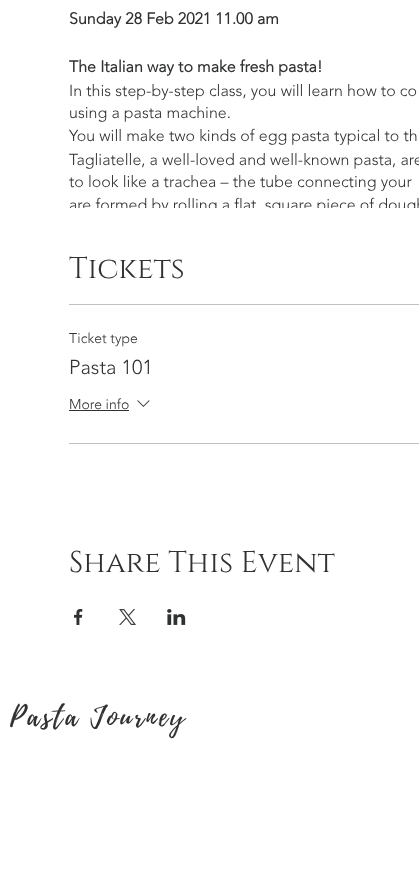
<svg xmlns="http://www.w3.org/2000/svg" width="419" height="877" viewBox="0 0 419 877">
  <style>
    .t1 { font: bold 16px 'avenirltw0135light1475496'; fill: #303131; }
    .t2 { font: 300 16px 'avenirltw0135light1475496'; fill: #303131; }
    .t3 { font: 30px Cinzel; fill: #303131; }
    .t4 { font: 300 14px 'avenirltw0135light1475496'; fill: #303131; }
    .t5 { font: 300 20px 'avenirltw0135light1475496'; fill: #303131; }
    .t6 { font: 28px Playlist; letter-spacing: 2.75px; fill: #303131; }
  </style>
  <defs>
    <clipPath id="clip1"><rect x="69" y="0" width="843" height="208"/></clipPath>
  </defs>
  <rect width="100%" height="100%" fill="#fff"/>
  <text x="69" y="24" class="t1">Sunday 28 Feb 2021 11.00 am</text>
  <text x="69" y="72" class="t1">The Italian way to make fresh pasta!</text>
  <text x="69" y="96" class="t2">In this step-by-step class, you will learn how to co</text>
  <text x="69" y="118" class="t2">using a pasta machine.</text>
  <text x="69" y="141" class="t2">You will make two kinds of egg pasta typical to th</text>
  <text x="69" y="165" class="t2">Tagliatelle, a well-loved and well-known pasta, are</text>
  <text x="69" y="187" class="t2">to look like a trachea – the tube connecting your</text>
  <g clip-path="url(#clip1)">
    <text x="69" y="210" class="t2">are formed by rolling a flat, square piece of dough</text>
  </g>
  <text x="69" y="278" class="t3">Tickets</text>
  <rect x="69" y="304" width="350" height="1" fill="#c1c1c1"/>
  <rect x="69" y="443" width="350" height="1" fill="#c1c1c1"/>
  <text x="69" y="343" class="t4">Ticket type</text>
  <text x="69" y="374" class="t5">Pasta 101</text>
  <text x="69" y="409" class="t4">More info</text>
  <rect x="69" y="410" width="60" height="1" fill="#303131"/>
  <image x="137" y="400" width="13" height="7" href="images/1.png"/>
  <text x="69" y="572" class="t3">Share This Event</text>
  <image x="74" y="609" width="9" height="16" href="images/2.png"/>
  <image x="119" y="609" width="17" height="16" href="images/3.png"/>
  <image x="167" y="609" width="19" height="16" href="images/4.png"/>
  <text x="10" y="725" class="t6">Pasta Journey</text>
</svg>
